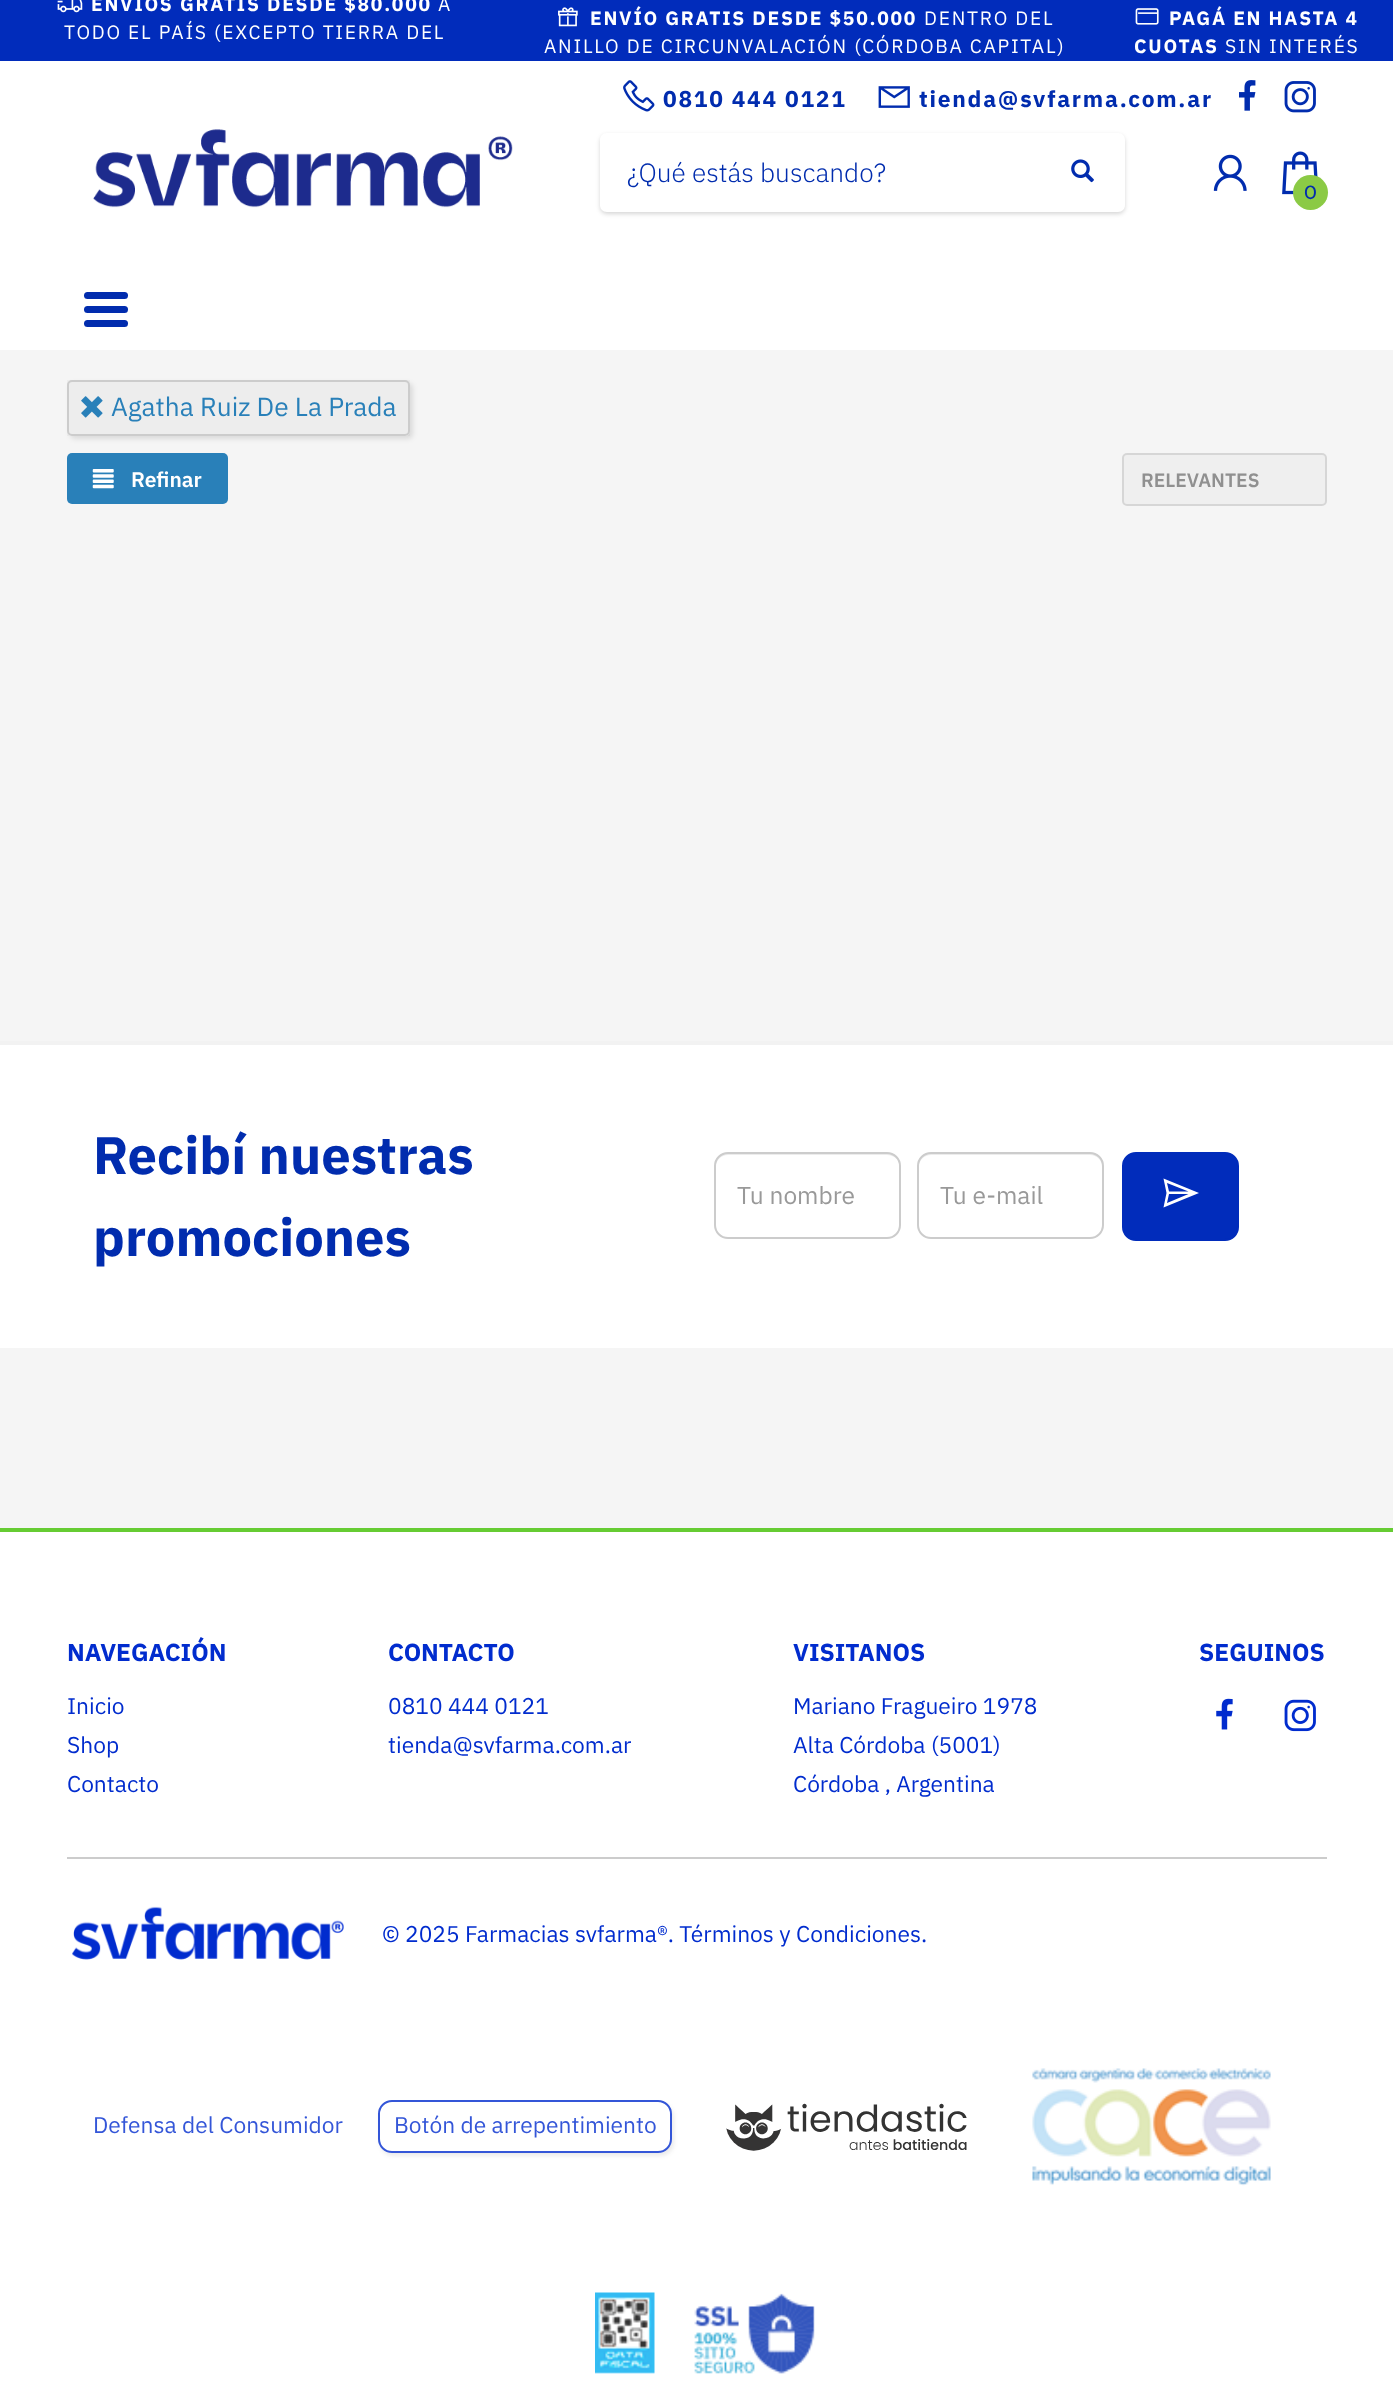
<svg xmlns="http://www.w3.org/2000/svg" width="1393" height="2382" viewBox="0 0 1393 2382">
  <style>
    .t1 { font: bold 19.25px IBM Plex Sans; letter-spacing: 1.75px; fill: #fff; }
    .t2 { font: 19.25px IBM Plex Sans; letter-spacing: 1.75px; fill: #fff; }
    .t3 { font: bold 22.75px IBM Plex Sans; letter-spacing: 1.75px; fill: #012cae; }
    .t4 { font: 300 26.25px IBM Plex Sans; fill: #012cae; }
    .t5 { font: 500 19.25px Montserrat; fill: #012cae; }
    .t6 { font: 26.25px IBM Plex Sans; fill: #2980b9; }
    .t7 { font: 600 21px IBM Plex Sans; fill: #fff; }
    .t8 { font: 600 19.25px IBM Plex Sans; fill: #909090; }
    .t9 { font: bold 52.5px IBM Plex Sans; fill: #012cae; }
    .t10 { font: 24.5px IBM Plex Sans; fill: #999; }
    .t11 { font: bold 24.5px IBM Plex Sans; fill: #012cce; }
    .t12 { font: 22.75px IBM Plex Sans; fill: #012cce; }
    .t13 { font: 22.75px IBM Plex Sans; fill: #3456d8; }
  </style>
  <defs>
    <clipPath id="clip1"><path d="M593 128H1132V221H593ZM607 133H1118C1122 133 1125 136 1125 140V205C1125 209 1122 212 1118 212H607C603 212 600 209 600 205V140C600 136 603 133 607 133Z" clip-rule="evenodd"/></clipPath>
    <clipPath id="clip2"><path d="M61 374H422V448H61ZM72 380H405C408 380 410 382 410 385V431C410 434 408 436 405 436H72C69 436 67 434 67 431V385C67 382 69 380 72 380Z" clip-rule="evenodd"/></clipPath>
    <clipPath id="clip3"><path d="M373 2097H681V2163H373ZM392 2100H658C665.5 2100 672 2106.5 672 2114V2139C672 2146.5 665.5 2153 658 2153H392C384.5 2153 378 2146.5 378 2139V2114C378 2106.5 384.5 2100 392 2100Z" clip-rule="evenodd"/></clipPath>
  </defs>
  <rect width="100%" height="100%" fill="#f5f5f5"/>
  <rect x="0" y="0" width="1393" height="61" fill="#012cbb"/>
  <image x="57" y="0" width="26" height="13" href="images/1.png"/>
  <text x="91" y="11" class="t1">ENVÍOS GRATIS DESDE $80.000</text>
  <text x="438" y="11" class="t2">A</text>
  <text x="64" y="39" class="t2">TODO EL PAÍS (EXCEPTO TIERRA DEL</text>
  <image x="558" y="7" width="20" height="20" href="images/2.png"/>
  <text x="590" y="25" class="t1">ENVÍO GRATIS DESDE $50.000</text>
  <text x="924" y="25" class="t2">DENTRO DEL</text>
  <text x="544" y="53" class="t2">ANILLO DE CIRCUNVALACIÓN (CÓRDOBA CAPITAL)</text>
  <image x="1135" y="8" width="24" height="17" href="images/3.png"/>
  <text x="1169" y="25" class="t1">PAGÁ EN HASTA 4</text>
  <text x="1134" y="53" class="t1">CUOTAS</text>
  <text x="1225" y="53" class="t2">SIN INTERÉS</text>
  <rect x="0" y="61" width="1393" height="289" fill="#fff"/>
  <image x="623" y="80" width="32" height="32" href="images/4.png"/>
  <text x="663" y="107" class="t3">0810 444 0121</text>
  <image x="878" y="86" width="32" height="22" href="images/5.png"/>
  <text x="919" y="107" class="t3">tienda@svfarma.com.ar</text>
  <image x="1239" y="80" width="17" height="31" href="images/6.png"/>
  <image x="1284" y="81" width="32" height="32" href="images/7.png"/>
  <image x="93" y="129" width="420" height="79" href="images/8.png"/>
  <g clip-path="url(#clip1)">
    <rect x="600" y="135" width="525" height="79" rx="7" fill="#00000029" filter="blur(2px)"/>
  </g>
  <rect x="600" y="133" width="525" height="79" rx="5" fill="#ffffff1a"/>
  <text x="627" y="182" class="t4">¿Qué estás buscando?</text>
  <image x="1071" y="159" width="23" height="24" href="images/9.png"/>
  <image x="1213" y="154" width="34" height="37" href="images/10.png"/>
  <image x="1282" y="151" width="36" height="44" href="images/11.png"/>
  <circle cx="1310.5" cy="192.5" r="17.5" fill="#8bca45"/>
  <text x="1304" y="199" class="t5">0</text>
  <rect x="84" y="320" width="44" height="7" rx="3.5" fill="#012cae"/>
  <rect x="84" y="306" width="44" height="7" rx="3.5" fill="#012cae"/>
  <rect x="84" y="292" width="44" height="7" rx="3.5" fill="#012cae"/>
  <g clip-path="url(#clip2)">
    <rect x="70" y="383" width="343" height="56" rx="5" fill="#0000001a" filter="blur(2.5px)"/>
  </g>
  <rect x="67" y="380" width="343" height="56" fill="#00000008"/>
  <rect x="68" y="381" width="341" height="54" rx="4" fill="none" stroke="#ccc" stroke-width="2"/>
  <image x="81" y="396" width="22" height="22" href="images/12.png"/>
  <text x="111" y="416" class="t6">Agatha Ruiz De La Prada</text>
  <rect x="67" y="453" width="161" height="51" rx="5" fill="#2980b9"/>
  <image x="92" y="469" width="22" height="20" href="images/13.png"/>
  <text x="131" y="487" class="t7">Refinar</text>
  <rect x="1122" y="453" width="205" height="53" rx="5" fill="#efefef"/>
  <rect x="1123" y="454" width="203" height="51" rx="4" fill="none" stroke="#0000001a" stroke-width="2"/>
  <text x="1141" y="487" class="t8">RELEVANTES</text>
  <rect x="0" y="1045" width="1393" height="303" fill="#fff"/>
  <rect x="0" y="1041" width="1393" height="4" fill="#f2f2f2"/>
  <text x="93" y="1174" class="t9">Recibí nuestras</text>
  <text x="93" y="1256" class="t9">promociones</text>
  <path d="M728 1155H887C894 1155 900 1160 900 1167V1165C900 1158 895 1153 888 1153H728C721 1153 716 1158 716 1165V1167C716 1160 721 1155 728 1155Z" fill="#ececec"/>
  <rect x="715" y="1153" width="185" height="85" rx="13" fill="none" stroke="#ccc" stroke-width="2"/>
  <text x="737" y="1204" class="t10">Tu nombre</text>
  <path d="M931 1155H1090C1097 1155 1102 1160 1102 1167V1227L1101 1231C1102 1229 1103 1227 1103 1225V1165C1103 1158 1098 1153 1091 1153H931C924 1153 919 1158 919 1165V1167C919 1160 924 1155 931 1155Z" fill="#ececec"/>
  <rect x="918" y="1153" width="185" height="85" rx="13" fill="none" stroke="#ccc" stroke-width="2"/>
  <text x="940" y="1204" class="t10">Tu e-mail</text>
  <rect x="1123" y="1153" width="115" height="87" rx="13" fill="#012cbb" stroke="#012cbb" stroke-width="2"/>
  <path d="M1163.5 1178.5L1166.5 1193L1163.5 1207.5L1199 1193ZM1167 1183L1188.5 1191.5H1169ZM1169 1194H1188.5L1167 1203Z" fill="#fff"/>
  <rect x="0" y="1532" width="1393" height="850" fill="#fff"/>
  <rect x="0" y="1528" width="1393" height="4" fill="#6c3"/>
  <text x="67" y="1661" class="t11">NAVEGACIÓN</text>
  <text x="67" y="1714" class="t12">Inicio</text>
  <text x="67" y="1753" class="t12">Shop</text>
  <text x="67" y="1792" class="t12">Contacto</text>
  <text x="388" y="1661" class="t11">CONTACTO</text>
  <text x="388" y="1714" class="t12">0810 444 0121</text>
  <text x="388" y="1753" class="t12">tienda@svfarma.com.ar</text>
  <text x="793" y="1661" class="t11">VISITANOS</text>
  <text x="793" y="1714" class="t12">Mariano Fragueiro 1978</text>
  <text x="793" y="1753" class="t12">Alta Córdoba (5001)</text>
  <text x="793" y="1792" class="t12">Córdoba , Argentina</text>
  <text x="1199" y="1661" class="t11">SEGUINOS</text>
  <image x="1216" y="1698" width="17" height="32" href="images/14.png"/>
  <image x="1284" y="1699" width="32" height="33" href="images/15.png"/>
  <rect x="67" y="1857" width="1260" height="2" fill="#ccc"/>
  <image x="72" y="1906" width="272" height="54" href="images/16.png"/>
  <text x="382" y="1942" class="t12">© 2025 Farmacias svfarma®. Términos y Condiciones.</text>
  <text x="93" y="2133" class="t13">Defensa del Consumidor</text>
  <g clip-path="url(#clip3)">
    <rect x="380" y="2104" width="294" height="52" rx="14" fill="#3333331a" filter="blur(2px)"/>
  </g>
  <rect x="379" y="2101" width="292" height="51" rx="13" fill="none" stroke="#3456d8" stroke-width="2"/>
  <text x="394" y="2133" class="t13">Botón de arrepentimiento</text>
  <image x="726" y="2103" width="241" height="48" href="images/17.png"/>
  <image x="1032" y="2068" width="239" height="118" href="images/18.png"/>
  <image x="595" y="2292" width="60" height="82" href="images/19.png"/>
  <image x="694" y="2293" width="121" height="81" href="images/20.png"/>
</svg>
